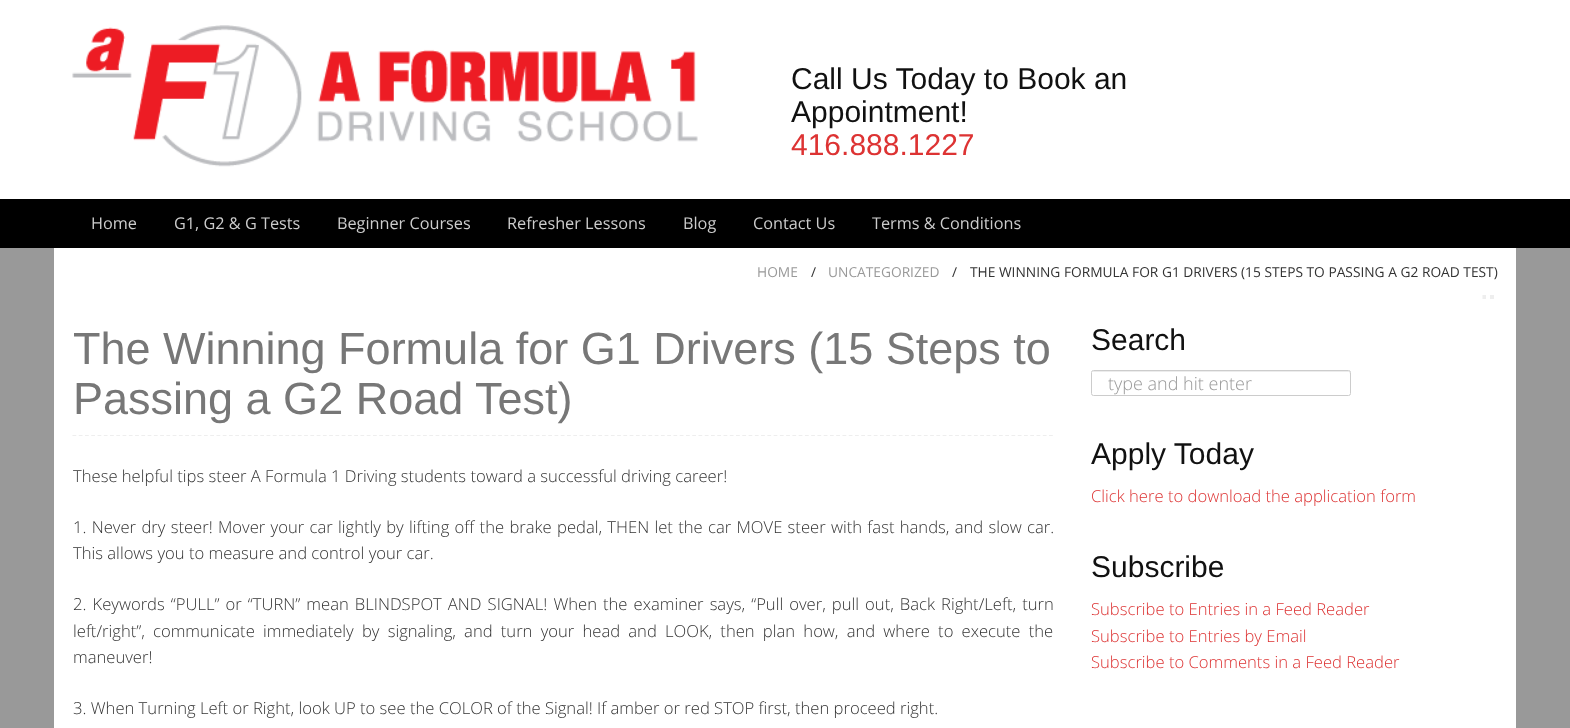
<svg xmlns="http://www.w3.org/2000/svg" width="1570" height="728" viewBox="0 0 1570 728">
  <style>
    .t1 { font: 30px Liberation Sans; fill: #111; }
    .t2 { font: 30px Liberation Sans; fill: #d33; }
    .t3 { font: 16.25px Open Sans; fill: #ccc; }
    .t4 { font: 13.75px Open Sans; fill: #999; }
    .t5 { font: 13.75px Open Sans; fill: #333; }
    .t6 { font: 45px Liberation Sans; fill: #777; }
    .t7 { font: 300 16.62px Open Sans; fill: #333; }
    .t8 { font: 300 18px Open Sans; fill: #999; }
    .t9 { font: 300 16.62px Open Sans; fill: #d33; }
  </style>
  <rect width="100%" height="100%" fill="#999"/>
  <rect x="0" y="0" width="1570" height="199" fill="#fff"/>
  <image x="72" y="25" width="626" height="142" href="images/1.png"/>
  <text x="791" y="89" class="t1">Call Us Today to Book an</text>
  <text x="791" y="122" class="t1">Appointment!</text>
  <text x="791" y="155" class="t2">416.888.1227</text>
  <rect x="0" y="199" width="1570" height="49" fill="#000"/>
  <text x="91" y="229" class="t3">Home</text>
  <text x="174" y="229" class="t3">G1, G2 &amp; G Tests</text>
  <text x="337" y="229" class="t3">Beginner Courses</text>
  <text x="507" y="229" class="t3">Refresher Lessons</text>
  <text x="683" y="229" class="t3">Blog</text>
  <text x="753" y="229" class="t3">Contact Us</text>
  <text x="872" y="229" class="t3">Terms &amp; Conditions</text>
  <rect x="54" y="248" width="1462" height="480" fill="#fff"/>
  <text x="757" y="277" class="t4">HOME</text>
  <text x="811" y="277" class="t5">/</text>
  <text x="828" y="277" class="t4">UNCATEGORIZED</text>
  <text x="952" y="277" class="t5">/</text>
  <text x="970" y="277" class="t5">THE WINNING FORMULA FOR G1 DRIVERS (15 STEPS TO PASSING A G2 ROAD TEST)</text>
  <path d="M1482.5 297H1486M1490 297H1494" fill="none" stroke="#eee" stroke-width="3.8"/>
  <path d="M72.5 435.5H1054" fill="none" stroke="#eee" stroke-width="1.2" stroke-dasharray="3.75 2.51"/>
  <text x="73" y="364" class="t6">The Winning Formula for G1 Drivers (15 Steps to</text>
  <text x="73" y="414" class="t6">Passing a G2 Road Test)</text>
  <text x="73" y="482" class="t7">These helpful tips steer A Formula 1 Driving students toward a successful driving career!</text>
  <text x="73" y="533" word-spacing="1" class="t7">1. Never dry steer! Mover your car lightly by lifting off the brake pedal, THEN let the car MOVE steer with fast hands, and slow car.</text>
  <text x="73" y="559" class="t7">This allows you to measure and control your car.</text>
  <text x="73" y="610" word-spacing="1.75" class="t7">2. Keywords “PULL” or “TURN” mean BLINDSPOT AND SIGNAL! When the examiner says, “Pull over, pull out, Back Right/Left, turn</text>
  <text x="73" y="637" word-spacing="3.9" class="t7">left/right”, communicate immediately by signaling, and turn your head and LOOK, then plan how, and where to execute the</text>
  <text x="73" y="663" class="t7">maneuver!</text>
  <text x="73" y="714" class="t7">3. When Turning Left or Right, look UP to see the COLOR of the Signal! If amber or red STOP first, then proceed right.</text>
  <text x="1091" y="350" class="t1">Search</text>
  <path d="M1094 372H1349L1350 374C1350 373 1350 371 1349 371H1093V372Z" fill="#ececec"/>
  <rect x="1091.5" y="370.5" width="259" height="25" rx="2" fill="none" stroke="#ccc"/>
  <text x="1108" y="390" class="t8">type and hit enter</text>
  <text x="1091" y="464" class="t1">Apply Today</text>
  <text x="1091" y="502" class="t9">Click here to download the application form</text>
  <text x="1091" y="577" class="t1">Subscribe</text>
  <text x="1091" y="615" class="t9">Subscribe to Entries in a Feed Reader</text>
  <text x="1091" y="642" class="t9">Subscribe to Entries by Email</text>
  <text x="1091" y="668" class="t9">Subscribe to Comments in a Feed Reader</text>
</svg>
